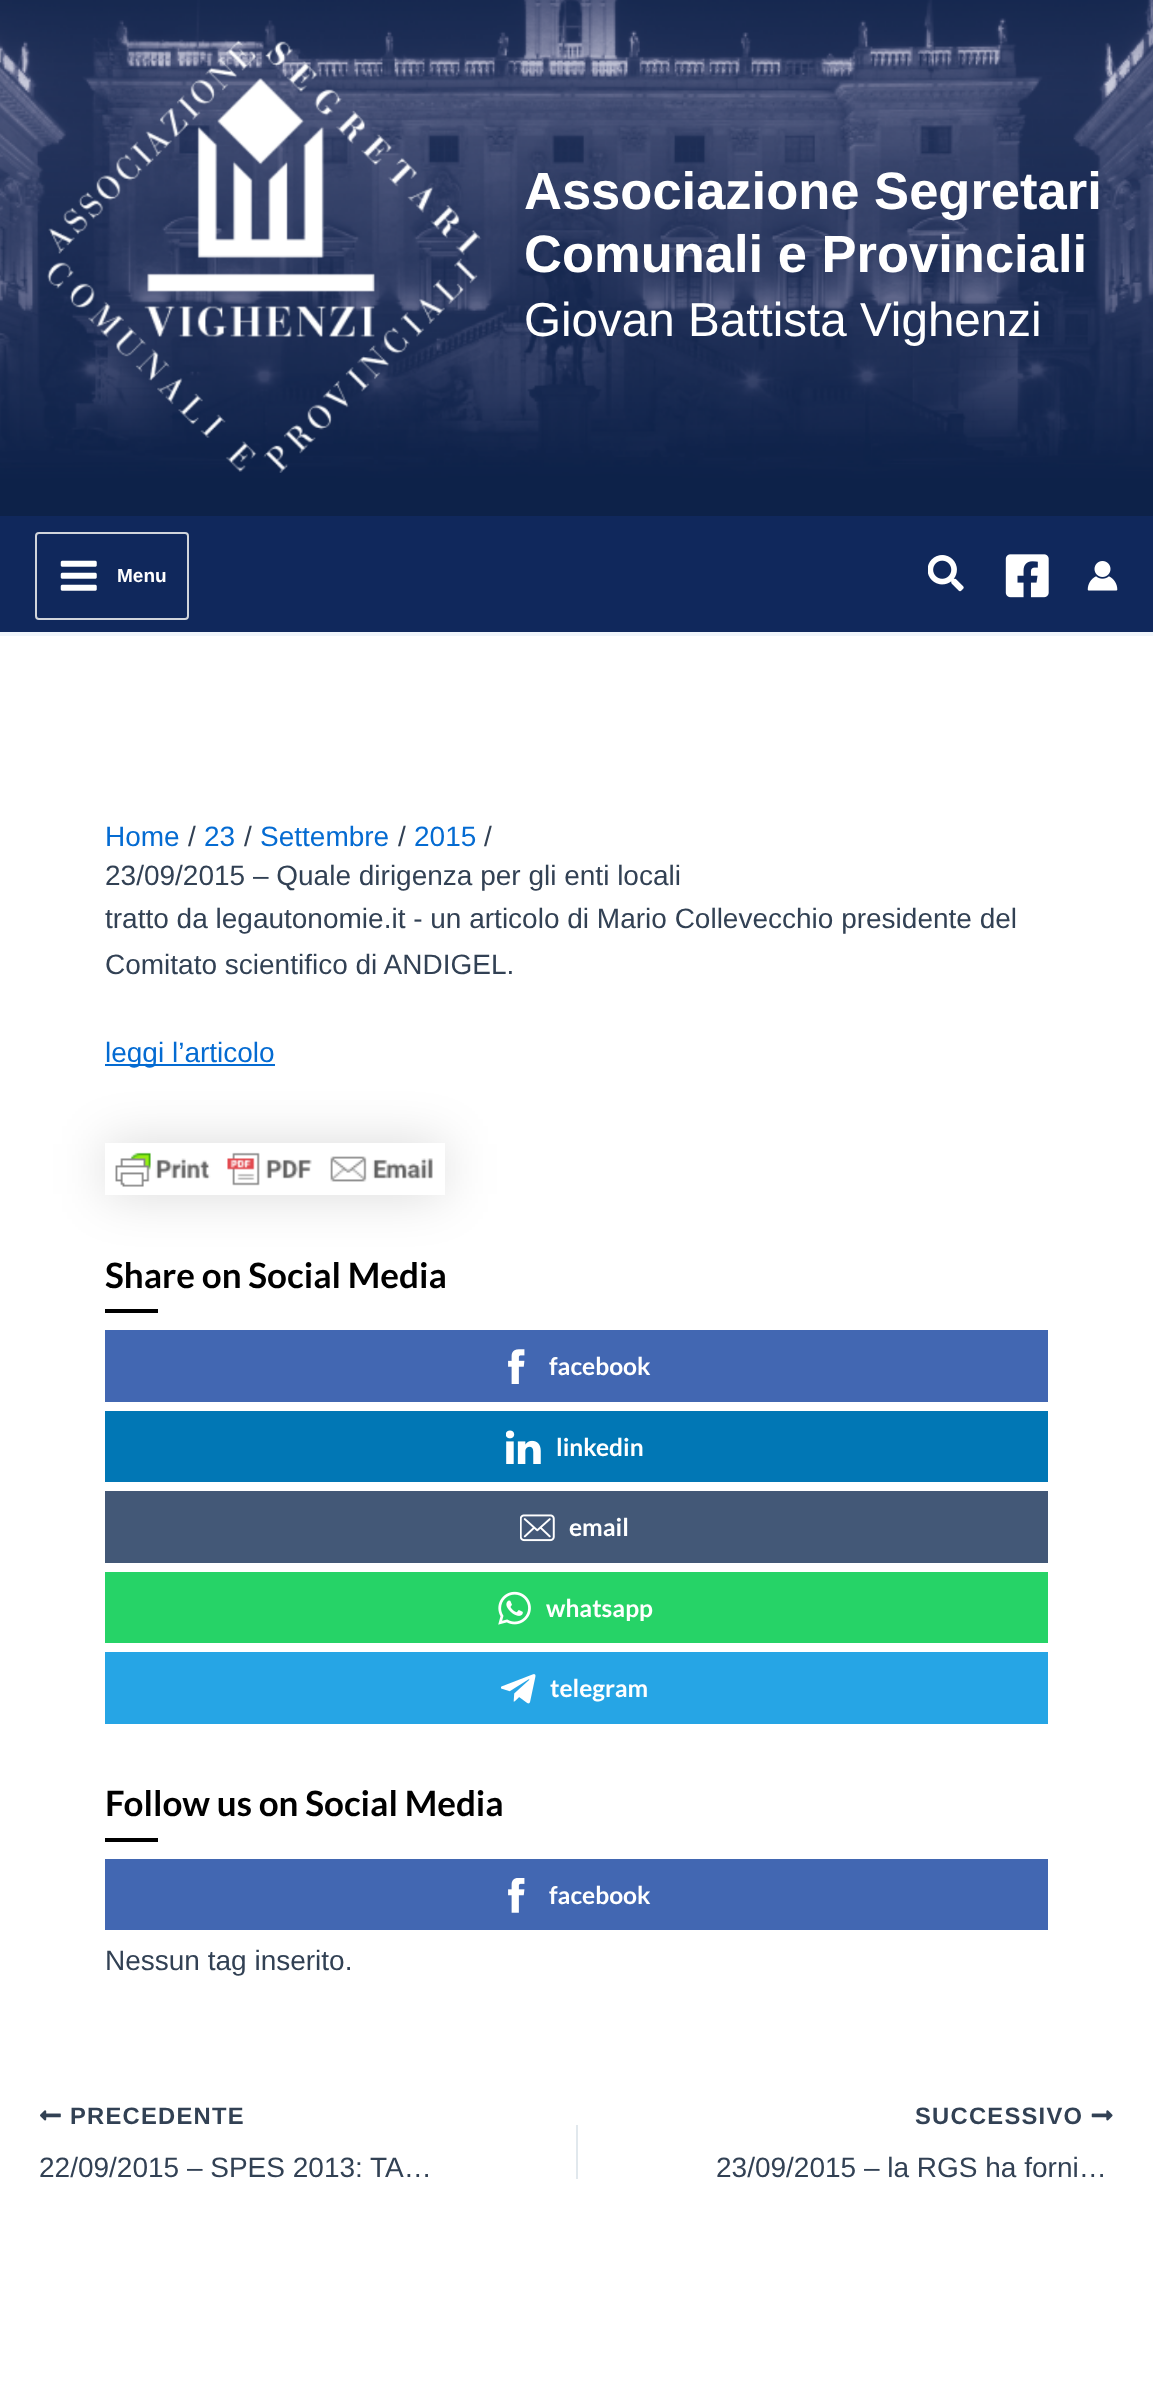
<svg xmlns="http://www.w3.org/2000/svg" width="1153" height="2384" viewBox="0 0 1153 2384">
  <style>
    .t1 { font: bold 52.5px Liberation Sans; fill: #fff; }
    .t2 { font: 47.6px Liberation Sans; fill: #fff; }
    .t3 { font: bold 19px Liberation Sans; fill: #fff; }
    .t4 { font: 28px Liberation Sans; fill: #046bd2; }
    .t5 { font: 28px Liberation Sans; fill: #324154; }
    .t6 { font: bold 35px Lato; fill: #000; }
    .t7 { font: bold 24.5px Lato; fill: #fff; }
    .t8 { font: bold 23.75px Liberation Sans; letter-spacing: 1.25px; fill: #324154; }
  </style>
  <defs>
    <clipPath id="clip1"><path d="M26 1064H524V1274H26ZM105 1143H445V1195H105Z" clip-rule="evenodd"/></clipPath>
  </defs>
  <rect width="100%" height="100%" fill="#fff"/>
  <image x="0" y="0" width="1153" height="516" href="images/1.png"/>
  <image x="47" y="40" width="435" height="433" href="images/2.png"/>
  <text x="524" y="209" class="t1">Associazione Segretari</text>
  <text x="524" y="272" class="t1">Comunali e Provinciali</text>
  <text x="524" y="336" class="t2">Giovan Battista Vighenzi</text>
  <rect x="0" y="516" width="1153" height="116" fill="#10285c"/>
  <rect x="0" y="632" width="1153" height="4" fill="#f0f5fa"/>
  <rect x="36" y="533" width="152" height="86" rx="3" fill="none" stroke="#d1d5db" stroke-width="2"/>
  <image x="60" y="560" width="37" height="31" href="images/3.png"/>
  <text x="117" y="582" class="t3">Menu</text>
  <image x="928" y="555" width="36" height="37" href="images/4.png"/>
  <image x="1005" y="554" width="44" height="44" href="images/5.png"/>
  <image x="1087" y="561" width="31" height="30" href="images/6.png"/>
  <text x="105" y="846" class="t4">Home</text>
  <text x="188" y="846" class="t5">/</text>
  <text x="204" y="846" class="t4">23</text>
  <text x="244" y="846" class="t5">/</text>
  <text x="260" y="846" class="t4">Settembre</text>
  <text x="398" y="846" class="t5">/</text>
  <text x="414" y="846" class="t4">2015</text>
  <text x="484" y="846" class="t5">/</text>
  <text x="105" y="885" class="t5">23/09/2015 – Quale dirigenza per gli enti locali</text>
  <text x="105" y="928" class="t5">tratto da legautonomie.it - un articolo di Mario Collevecchio presidente del</text>
  <text x="105" y="974" class="t5">Comitato scientifico di ANDIGEL.</text>
  <rect x="105" y="1064" width="170" height="2" fill="#046bd2"/>
  <text x="105" y="1062" class="t4">leggi l’articolo</text>
  <g clip-path="url(#clip1)">
    <rect x="105" y="1143" width="340" height="52" fill="#00000026" filter="blur(26px)"/>
  </g>
  <image x="115" y="1152" width="318" height="35" href="images/7.png"/>
  <text x="105" y="1288" class="t6">Share on Social Media</text>
  <rect x="105" y="1309" width="53" height="4" fill="#000"/>
  <rect x="105" y="1330" width="943" height="72" fill="#4267b2"/>
  <image x="508" y="1349" width="17" height="35" href="images/8.png"/>
  <text x="549" y="1375" class="t7">facebook</text>
  <rect x="105" y="1411" width="943" height="71" fill="#0177b5"/>
  <image x="506" y="1430" width="35" height="34" href="images/9.png"/>
  <text x="556" y="1456" class="t7">linkedin</text>
  <rect x="105" y="1491" width="943" height="72" fill="#435877"/>
  <image x="520" y="1514" width="35" height="28" href="images/10.png"/>
  <text x="569" y="1536" class="t7">email</text>
  <rect x="105" y="1572" width="943" height="71" fill="#26d367"/>
  <image x="498" y="1591" width="33" height="34" href="images/11.png"/>
  <text x="546" y="1617" class="t7">whatsapp</text>
  <rect x="105" y="1652" width="943" height="72" fill="#26a5e5"/>
  <image x="501" y="1674" width="35" height="30" href="images/12.png"/>
  <text x="550" y="1697" class="t7">telegram</text>
  <text x="105" y="1816" class="t6">Follow us on Social Media</text>
  <rect x="105" y="1838" width="53" height="4" fill="#000"/>
  <rect x="105" y="1859" width="943" height="71" fill="#4267b2"/>
  <image x="508" y="1878" width="17" height="35" href="images/13.png"/>
  <text x="549" y="1904" class="t7">facebook</text>
  <text x="105" y="1970" class="t5">Nessun tag inserito.</text>
  <image x="40" y="2110" width="21" height="11" href="images/14.png"/>
  <text x="70" y="2124" class="t8">PRECEDENTE</text>
  <text x="39" y="2177" class="t5">22/09/2015 – SPES 2013: TA…</text>
  <rect x="576" y="2125" width="2" height="54" fill="#e1e8ed"/>
  <text x="915" y="2124" class="t8">SUCCESSIVO</text>
  <image x="1091" y="2110" width="22" height="11" href="images/15.png"/>
  <text x="716" y="2177" class="t5">23/09/2015 – la RGS ha forni…</text>
</svg>
